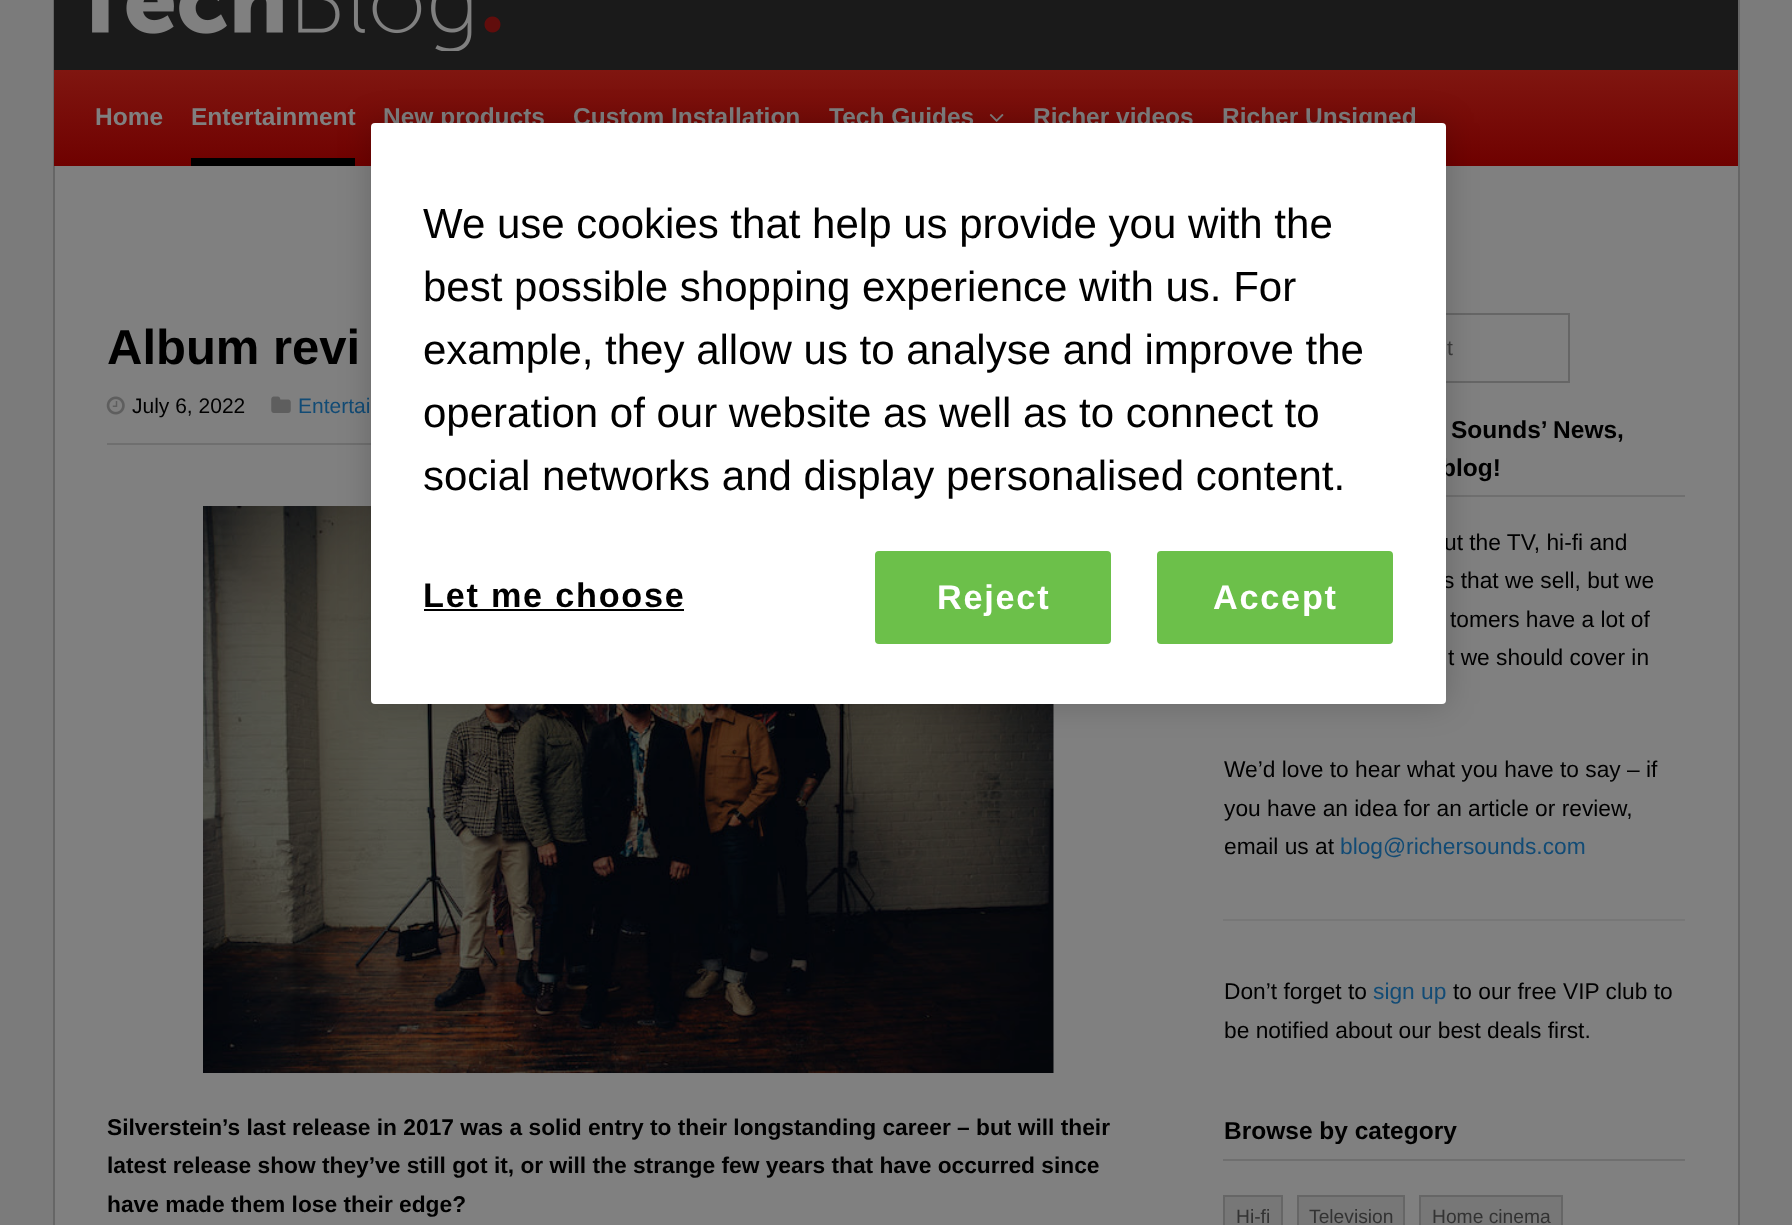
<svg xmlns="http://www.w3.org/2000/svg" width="1792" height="1225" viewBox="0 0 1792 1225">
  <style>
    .t1 { font: bold 24.5px Liberation Sans; fill: #808080; }
    .t2 { font: bold 49px Liberation Sans; fill: #000; }
    .t3 { font: 21px Liberation Sans; fill: #000; }
    .t4 { font: 21px Liberation Sans; fill: #124b75; }
    .t5 { font: bold 22.75px Liberation Sans; fill: #000; }
    .t6 { font: 21px Liberation Sans; fill: #3b3b3b; }
    .t7 { font: bold 24.5px Liberation Sans; fill: #000; }
    .t8 { font: 22.75px Liberation Sans; fill: #000; }
    .t9 { font: 22.75px Liberation Sans; fill: #124b75; }
    .t10 { font: 19.25px Liberation Sans; fill: #333; }
    .t11 { font: 42px Liberation Sans; fill: #000; }
    .t12 { font: bold 34.25px Liberation Sans; letter-spacing: 1.75px; fill: #000; }
    .t13 { font: bold 34.25px Liberation Sans; letter-spacing: 1.75px; fill: #fff; }
  </style>
  <defs>
    <linearGradient id="g1" gradientUnits="userSpaceOnUse" x1="896" y1="70" x2="896" y2="166"><stop offset="0" stop-color="#801610"/><stop offset="1" stop-color="#6f0100"/></linearGradient>
  </defs>
  <rect width="100%" height="100%" fill="#7b7b7b"/>
  <rect x="55" y="166" width="1683" height="1059" fill="#808080"/>
  <rect x="54" y="-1" width="1685" height="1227" fill="none" stroke="#666" stroke-width="2"/>
  <rect x="54" y="0" width="1684" height="70" fill="#1a1a1a"/>
  <image x="92" y="0" width="409" height="51" href="images/1.png"/>
  <rect x="54" y="70" width="1684" height="96" fill="url(#g1)"/>
  <text x="95" y="125" class="t1">Home</text>
  <rect x="191" y="158" width="164" height="8" fill="#000"/>
  <text x="191" y="125" class="t1">Entertainment</text>
  <text x="383" y="125" class="t1">New products</text>
  <text x="573" y="125" class="t1">Custom Installation</text>
  <text x="829" y="125" class="t1">Tech Guides</text>
  <image x="989" y="114" width="15" height="8" href="images/2.png"/>
  <text x="1033" y="125" class="t1">Richer videos</text>
  <text x="1222" y="125" class="t1">Richer Unsigned</text>
  <text x="107" y="364" class="t2">Album revi</text>
  <rect x="107" y="443" width="264" height="2" fill="#6f6f6f"/>
  <image x="106" y="396" width="19" height="19" href="images/3.png"/>
  <text x="132" y="413" class="t3">July 6, 2022</text>
  <image x="271" y="396" width="20" height="17" href="images/4.png"/>
  <text x="298" y="413" class="t4">Entertai</text>
  <image x="203" y="506" width="851" height="567" href="images/5.png"/>
  <text x="107" y="1135" class="t5">Silverstein’s last release in 2017 was a solid entry to their longstanding career – but will their</text>
  <text x="107" y="1173" class="t5">latest release show they’ve still got it, or will the strange few years that have occurred since</text>
  <text x="107" y="1212" class="t5">have made them lose their edge?</text>
  <rect x="1224" y="314" width="345" height="68" fill="none" stroke="#666" stroke-width="2"/>
  <text x="1447" y="355" class="t6">t</text>
  <rect x="1446" y="495" width="239" height="2" fill="#6f6f6f"/>
  <text x="1451" y="438" class="t7">Sounds’ News,</text>
  <text x="1441" y="476" class="t7">blog!</text>
  <text x="1444" y="550" class="t8">ut the TV, hi-fi and</text>
  <text x="1443" y="588" class="t8">s that we sell, but we</text>
  <text x="1450" y="627" class="t8">tomers have a lot of</text>
  <text x="1448" y="665" class="t8">t we should cover in</text>
  <text x="1224" y="777" class="t8">We’d love to hear what you have to say – if</text>
  <text x="1224" y="816" class="t8">you have an idea for an article or review,</text>
  <text x="1224" y="854" class="t8">email us at</text>
  <text x="1340" y="854" class="t9">blog@richersounds.com</text>
  <rect x="1223" y="919" width="462" height="2" fill="#777"/>
  <text x="1224" y="999" class="t8">Don’t forget to</text>
  <text x="1373" y="999" class="t9">sign up</text>
  <text x="1453" y="999" class="t8">to our free VIP club to</text>
  <text x="1224" y="1038" class="t8">be notified about our best deals first.</text>
  <rect x="1223" y="1159" width="462" height="2" fill="#6f6f6f"/>
  <text x="1224" y="1139" class="t7">Browse by category</text>
  <rect x="1224" y="1196" width="58" height="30" fill="#777" stroke="#666" stroke-width="2"/>
  <text x="1236" y="1223" class="t10">Hi-fi</text>
  <rect x="1298" y="1196" width="106" height="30" fill="#777" stroke="#666" stroke-width="2"/>
  <text x="1309" y="1223" class="t10">Television</text>
  <rect x="1420" y="1196" width="142" height="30" fill="#777" stroke="#666" stroke-width="2"/>
  <text x="1432" y="1223" class="t10">Home cinema</text>
  <rect x="371" y="123" width="1075" height="581" rx="4" fill="#00000033" filter="blur(16px)"/>
  <rect x="371" y="123" width="1075" height="581" rx="4" fill="#fff"/>
  <text x="423" y="238" class="t11">We use cookies that help us provide you with the</text>
  <text x="423" y="301" class="t11">best possible shopping experience with us. For</text>
  <text x="423" y="364" class="t11">example, they allow us to analyse and improve the</text>
  <text x="423" y="427" class="t11">operation of our website as well as to connect to</text>
  <text x="423" y="490" class="t11">social networks and display personalised content.</text>
  <text x="423" y="607" class="t12">Let me choose</text>
  <rect x="424" y="609" width="260" height="2" fill="#000"/>
  <rect x="876" y="552" width="234" height="91" rx="3" fill="#6cc04a" stroke="#6cc04a" stroke-width="2"/>
  <text x="937" y="609" class="t13">Reject</text>
  <rect x="1158" y="552" width="234" height="91" rx="3" fill="#6cc04a" stroke="#6cc04a" stroke-width="2"/>
  <text x="1213" y="609" class="t13">Accept</text>
</svg>
